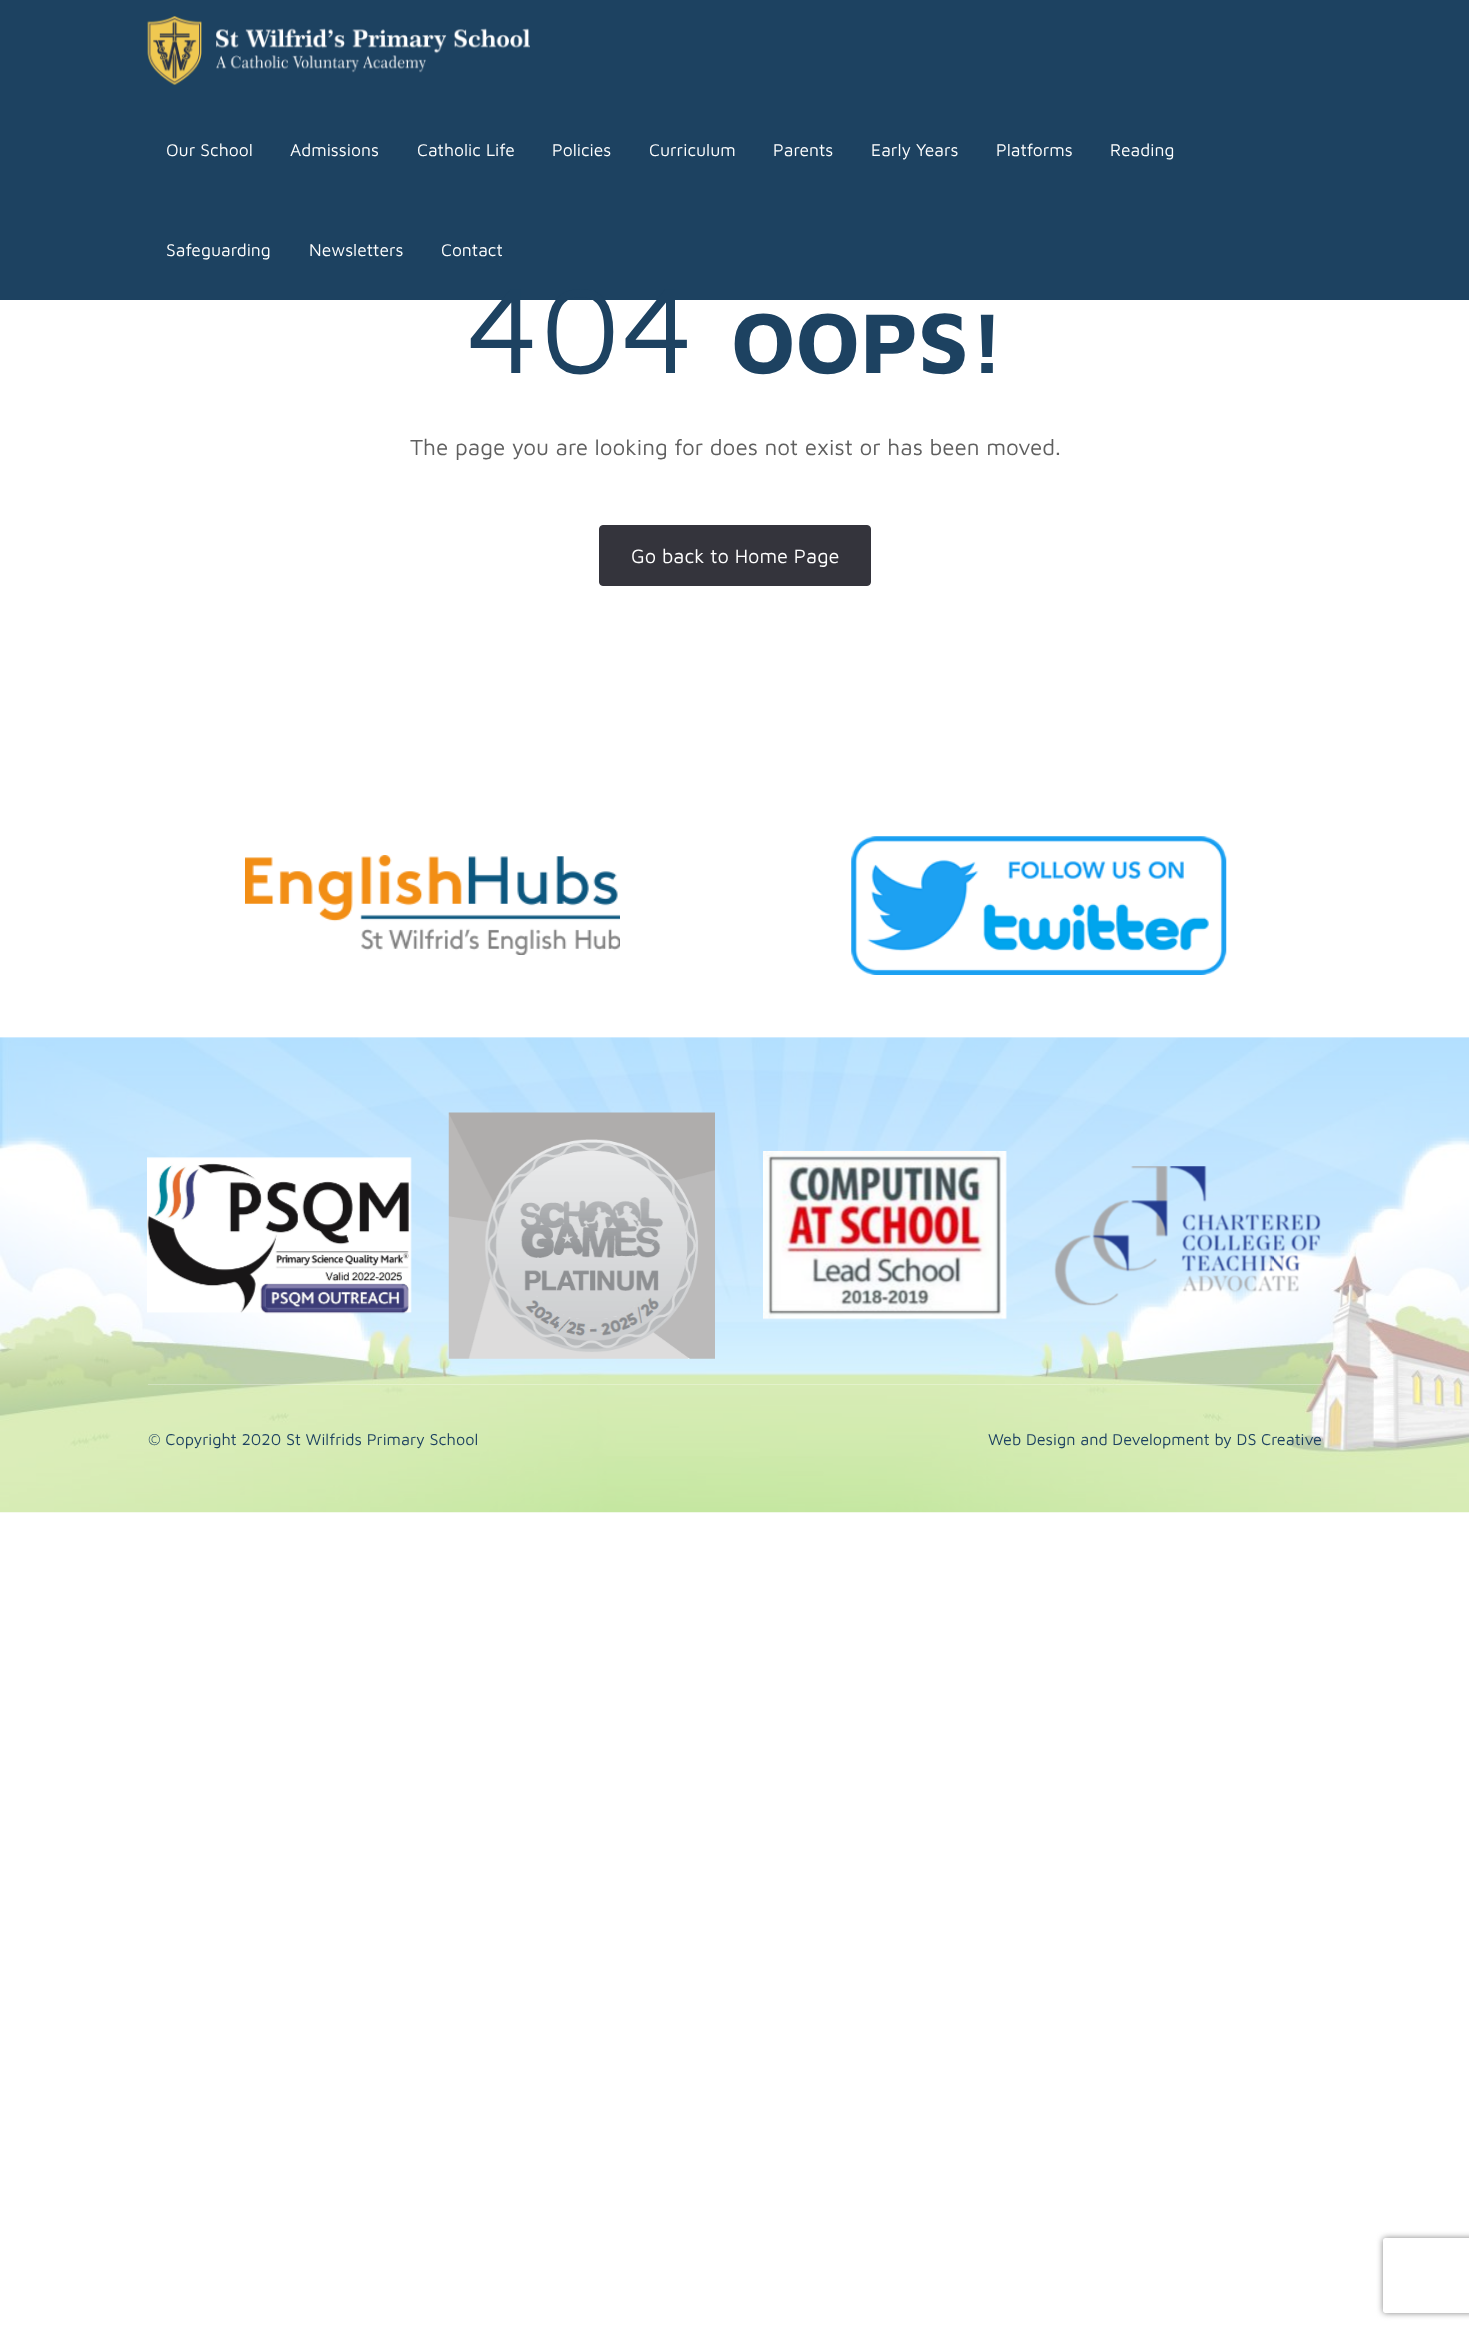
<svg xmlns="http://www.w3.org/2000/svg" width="1469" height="2329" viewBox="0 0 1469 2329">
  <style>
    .t1 { font: 17.5px Maven Pro; fill: #fff; }
    .t2 { font: 125px Maven Pro; fill: #1d4261; }
    .t3 { font: bold 87.5px Maven Pro; fill: #1d4261; }
    .t4 { font: 22.5px Maven Pro; fill: #606060; }
    .t5 { font: 20px Maven Pro; fill: #fff; }
    .t6 { font: 16.25px Maven Pro; fill: #1d4261; }
  </style>
  <defs>
    <clipPath id="clip1"><path d="M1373 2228H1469V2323H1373ZM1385.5 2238H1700.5C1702 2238 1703 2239 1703 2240.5V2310.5C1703 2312 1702 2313 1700.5 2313H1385.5C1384 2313 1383 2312 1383 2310.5V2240.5C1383 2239 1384 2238 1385.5 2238Z" clip-rule="evenodd"/></clipPath>
  </defs>
  <rect width="100%" height="100%" fill="#fff"/>
  <rect x="0" y="0" width="1469" height="300" fill="#1d4261"/>
  <image x="147" y="16" width="383" height="69" href="images/1.png"/>
  <text x="166" y="156" class="t1">Our School</text>
  <text x="290" y="156" class="t1">Admissions</text>
  <text x="417" y="156" class="t1">Catholic Life</text>
  <text x="552" y="156" class="t1">Policies</text>
  <text x="649" y="156" class="t1">Curriculum</text>
  <text x="773" y="156" class="t1">Parents</text>
  <text x="871" y="156" class="t1">Early Years</text>
  <text x="996" y="156" class="t1">Platforms</text>
  <text x="1110" y="156" class="t1">Reading</text>
  <text x="166" y="256" class="t1">Safeguarding</text>
  <text x="309" y="256" class="t1">Newsletters</text>
  <text x="441" y="256" class="t1">Contact</text>
  <text x="466" y="373" class="t2">404</text>
  <text x="731" y="373" class="t3">OOPS!</text>
  <text x="410" y="455" class="t4">The page you are looking for does not exist or has been moved.</text>
  <rect x="599.5" y="525.5" width="271" height="60" rx="3.5" fill="#34343c" stroke="#34343c"/>
  <text x="631" y="563" class="t5">Go back to Home Page</text>
  <image x="245" y="855" width="375" height="100" href="images/2.png"/>
  <image x="851" y="836" width="376" height="139" href="images/3.png"/>
  <image x="0" y="1037" width="1469" height="476" href="images/4.png"/>
  <image x="147" y="1157" width="265" height="157" href="images/5.png"/>
  <image x="448" y="1112" width="267" height="247" href="images/6.png"/>
  <image x="763" y="1151" width="244" height="169" href="images/7.png"/>
  <image x="1054" y="1166" width="267" height="140" href="images/8.png"/>
  <rect x="148" y="1384" width="1175" height="1" fill="#ffffff4d"/>
  <text x="148" y="1445" class="t6">© Copyright 2020 St Wilfrids Primary School</text>
  <text x="988" y="1445" class="t6">Web Design and Development by DS Creative</text>
  <g clip-path="url(#clip1)">
    <rect x="1383" y="2238" width="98" height="75" rx="2.5" fill="#808080" filter="blur(3px)"/>
  </g>
</svg>
